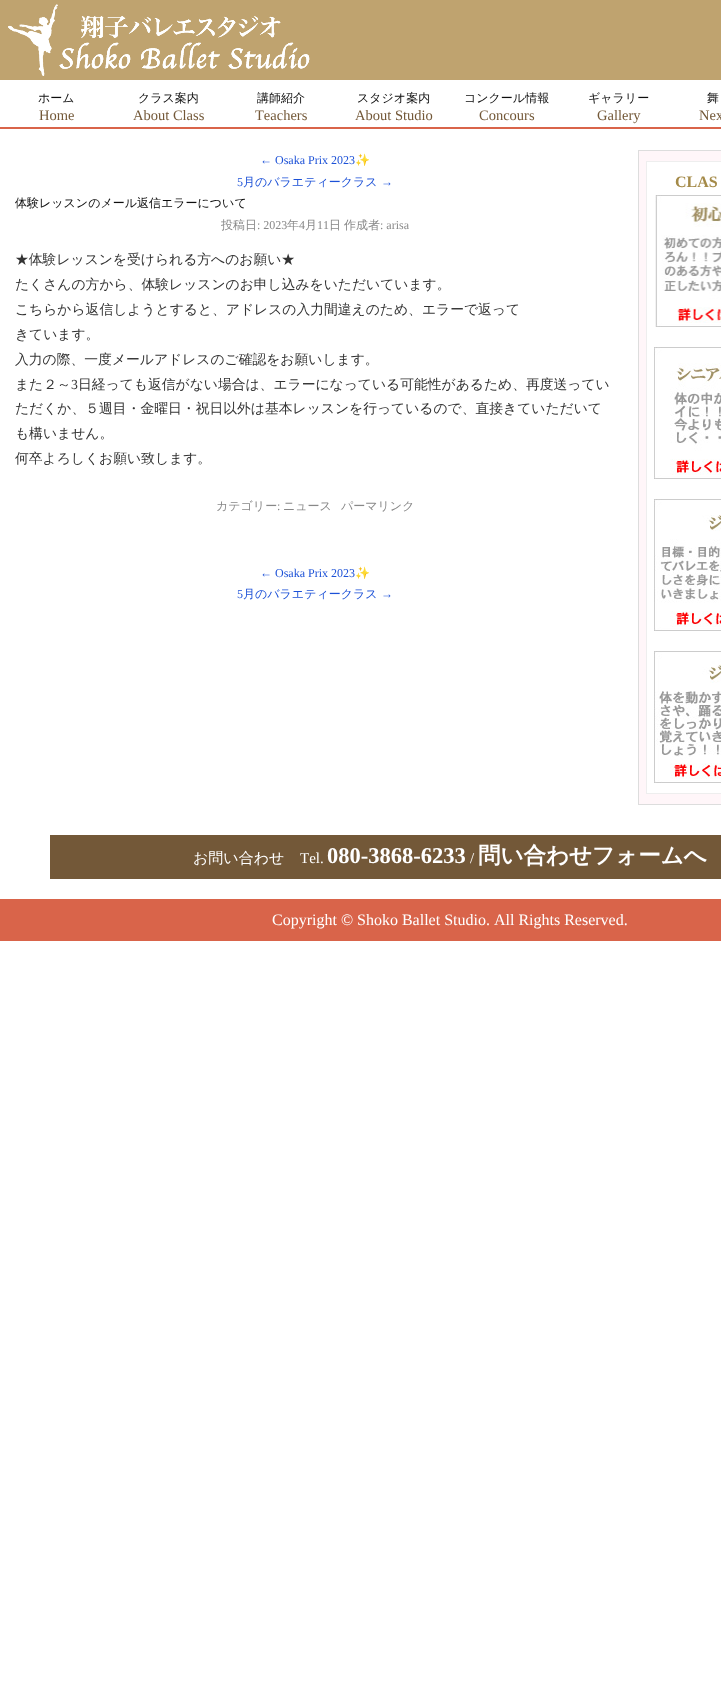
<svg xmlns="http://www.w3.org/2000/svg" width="721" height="1690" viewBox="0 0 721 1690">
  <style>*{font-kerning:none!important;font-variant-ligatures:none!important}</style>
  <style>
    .t1 { font: 500 12px WenQuanYi Zen Hei; fill: #0d0d0d; }
    .t2 { font: 14.5px Liberation Serif; fill: #735838; }
    .t3 { font: 12px Liberation Serif; fill: #1c51d7; }
    .t4 { font: 12px Noto Color Emoji; fill: #1c51d7; }
    .t5 { font: 500 12px WenQuanYi Zen Hei; fill: #1c51d7; }
    .t6 { font: 500 12px WenQuanYi Zen Hei; fill: #888; }
    .t7 { font: 12px Liberation Serif; fill: #888; }
    .t8 { font: 500 13.8px WenQuanYi Zen Hei; fill: #333; }
    .t9 { font: 13.8px Liberation Serif; fill: #333; }
    .t10 { font: bold 16px Liberation Serif; fill: #a48a48; }
    .t11 { font: 500 15px WenQuanYi Zen Hei; fill: #fff; }
    .t12 { font: 15px Liberation Serif; fill: #fff; }
    .t13 { font: bold 22.5px Liberation Serif; fill: #fff; }
    .t14 { font: bold 22.5px WenQuanYi Zen Hei; fill: #fff; }
    .t15 { font: 16px Liberation Serif; fill: #fff; }
  </style>
  <rect width="100%" height="100%" fill="#fff"/>
  <rect x="0" y="0" width="721" height="80" fill="#bfa36f"/>
  <image x="8" y="4" width="302" height="72" href="images/1.png"/>
  <text x="38" y="102" class="t1">ホーム</text>
  <text x="39" y="120" class="t2">Home</text>
  <rect x="0" y="127" width="721" height="2" fill="#d9644a"/>
  <text x="138" y="102" class="t1">クラス案内</text>
  <text x="133" y="120" class="t2">About Class</text>
  <text x="257" y="102" class="t1">講師紹介</text>
  <text x="255" y="120" class="t2">Teachers</text>
  <text x="357" y="102" class="t1">スタジオ案内</text>
  <text x="355" y="120" class="t2">About Studio</text>
  <text x="464" y="102" class="t1">コンクール情報</text>
  <text x="479" y="120" class="t2">Concours</text>
  <text x="588" y="102" class="t1">ギャラリー</text>
  <text x="597" y="120" class="t2">Gallery</text>
  <text x="707" y="102" class="t1">舞</text>
  <text x="699" y="120" class="t2">Nex</text>
  <text x="260" y="164" class="t3">← Osaka Prix 2023</text>
  <text x="355" y="164" class="t4">✨</text>
  <text x="237" y="186" class="t3">5</text>
  <text x="243" y="186" class="t5">月のバラエティークラス</text>
  <text x="381" y="186" class="t3">→</text>
  <text x="15" y="207" class="t1">体験レッスンのメール返信エラーについて</text>
  <text x="221" y="229" class="t6">投稿日</text>
  <text x="257" y="229" class="t7">: 2023</text>
  <text x="287" y="229" class="t6">年</text>
  <text x="299" y="229" class="t7">4</text>
  <text x="305" y="229" class="t6">月</text>
  <text x="317" y="229" class="t7">11</text>
  <text x="329" y="229" class="t6">日</text>
  <text x="344" y="229" class="t6">作成者</text>
  <text x="380" y="229" class="t7">: arisa</text>
  <text x="15" y="264" class="t8">★体験レッスンを受けられる方へのお願い★</text>
  <text x="15" y="289" class="t8">たくさんの方から、体験レッスンのお申し込みをいただいています。</text>
  <text x="15" y="314" class="t8">こちらから返信しようとすると、アドレスの入力間違えのため、エラーで返って</text>
  <text x="15" y="339" class="t8">きています。</text>
  <text x="15" y="364" class="t8">入力の際、一度メールアドレスのご確認をお願いします。</text>
  <text x="15" y="389" class="t8">また２～</text>
  <text x="71" y="389" class="t9">3</text>
  <text x="78" y="389" class="t8">日経っても返信がない場合は、エラーになっている可能性があるため、再度送ってい</text>
  <text x="15" y="413" class="t8">ただくか、５週目・金曜日・祝日以外は基本レッスンを行っているので、直接きていただいて</text>
  <text x="15" y="438" class="t8">も構いません。</text>
  <text x="15" y="463" class="t8">何卒よろしくお願い致します。</text>
  <text x="216" y="510" class="t6">カテゴリー</text>
  <text x="277" y="510" class="t7">:</text>
  <text x="283" y="510" class="t6">ニュース</text>
  <text x="341" y="510" class="t6">パーマリンク</text>
  <text x="260" y="577" class="t3">← Osaka Prix 2023</text>
  <text x="355" y="577" class="t4">✨</text>
  <text x="237" y="598" class="t3">5</text>
  <text x="243" y="598" class="t5">月のバラエティークラス</text>
  <text x="381" y="598" class="t3">→</text>
  <rect x="638.5" y="150.5" width="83" height="654" fill="#fff6f9" stroke="#ddd"/>
  <rect x="646.5" y="161.5" width="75" height="632" fill="#fff" stroke="#eee"/>
  <text x="675" y="187" class="t10">CLAS</text>
  <image x="655" y="195" width="66" height="132" href="images/2.png"/>
  <image x="654" y="347" width="67" height="132" href="images/3.png"/>
  <image x="654" y="499" width="67" height="132" href="images/4.png"/>
  <image x="654" y="651" width="67" height="132" href="images/5.png"/>
  <rect x="50" y="835" width="671" height="44" fill="#735838"/>
  <text x="193" y="863" class="t11">お問い合わせ</text>
  <text x="300" y="863" class="t12">Tel.</text>
  <text x="327" y="863" class="t13">080-3868-6233</text>
  <text x="470" y="863" class="t12">/</text>
  <text x="478" y="863" class="t14">問い合わせフォームへ</text>
  <rect x="0" y="899" width="721" height="42" fill="#d9644a"/>
  <text x="272" y="925" class="t15">Copyright © Shoko Ballet Studio. All Rights Reserved.</text>
</svg>
